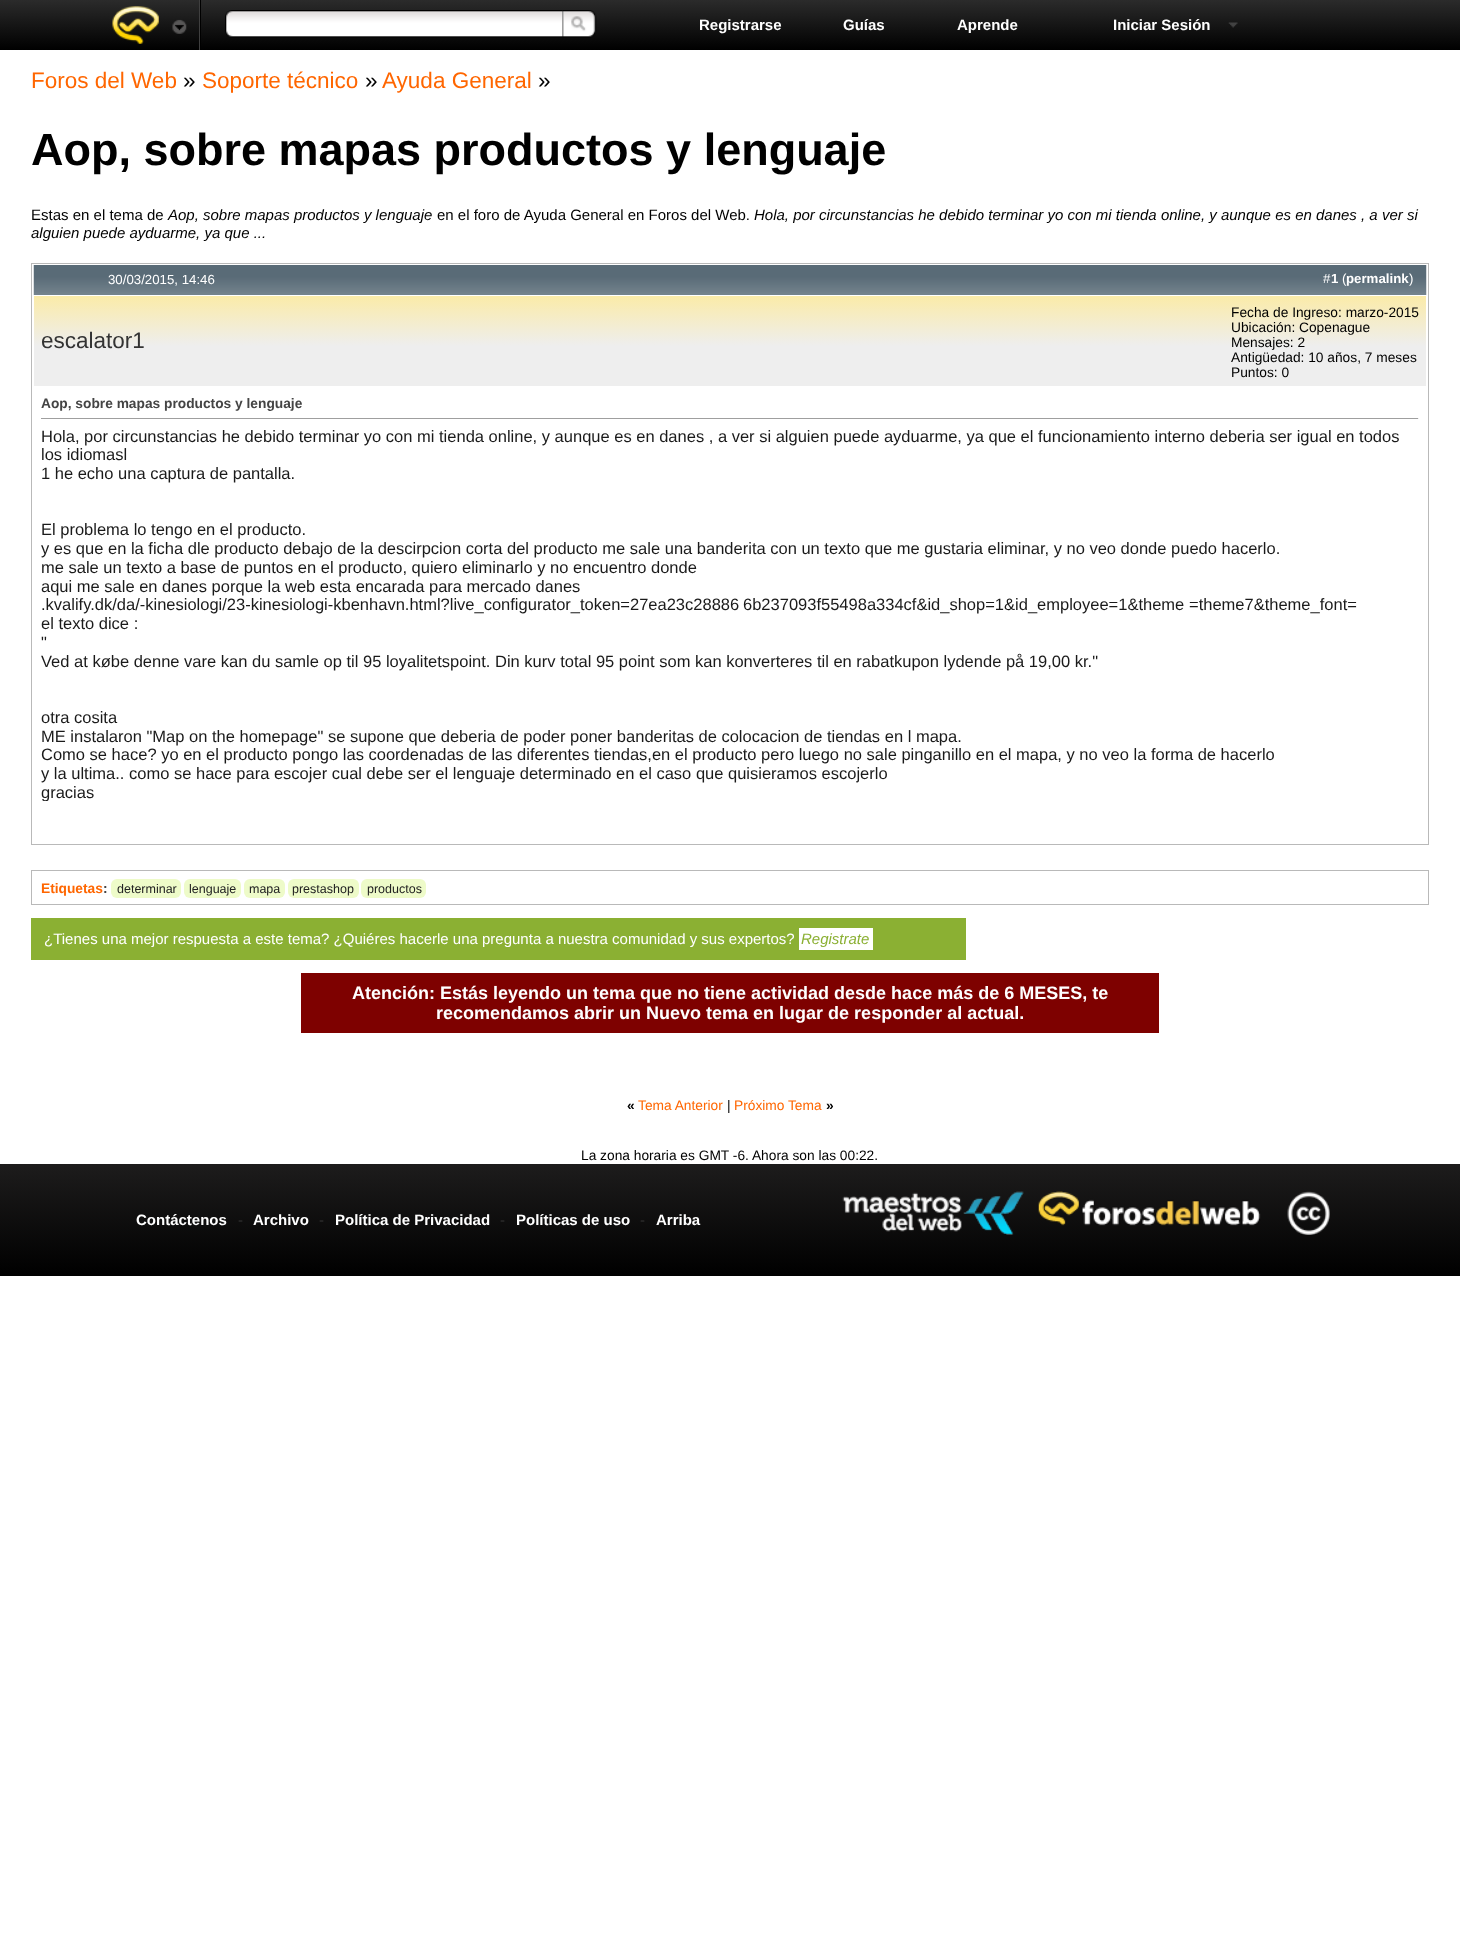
<svg xmlns="http://www.w3.org/2000/svg" width="1460" height="1958" viewBox="0 0 1460 1958">
  <style>
    .t1 { font: bold 15px Liberation Sans; fill: #fff; }
    .t2 { font: 22.5px Liberation Sans; fill: #f60; }
    .t3 { font: 22.5px Liberation Sans; fill: #000; }
    .t4 { font: bold 45px Liberation Sans; fill: #000; }
    .t5 { font: 15px Liberation Sans; fill: #000; }
    .t6 { font: italic 15px Liberation Sans; fill: #000; }
    .t7 { font: 13.25px Liberation Sans; fill: #fff; }
    .t8 { font: bold 13.25px Liberation Sans; fill: #fff; }
    .t9 { font: 22.5px Liberation Sans; fill: #333; }
    .t10 { font: 13.75px Liberation Sans; fill: #000; }
    .t11 { font: bold 13.75px Liberation Sans; fill: #444; }
    .t12 { font: 16.5px Liberation Sans; fill: #1a1a1a; }
    .t13 { font: bold 13.75px Liberation Sans; fill: #f60; }
    .t14 { font: 12.5px Liberation Sans; fill: #222; }
    .t15 { font: 15px Liberation Sans; fill: #fff; }
    .t16 { font: italic 15px Liberation Sans; fill: #8bb033; }
    .t17 { font: bold 18px Liberation Sans; fill: #fff; }
    .t18 { font: bold 13.75px Liberation Sans; fill: #000; }
    .t19 { font: 13.75px Liberation Sans; fill: #f60; }
    .t20 { font: 15px Liberation Sans; fill: #333; }
  </style>
  <defs>
    <linearGradient id="g1" gradientUnits="userSpaceOnUse" x1="0" y1="0" x2="0" y2="50"><stop offset="0" stop-color="#2b2b2b"/><stop offset="1" stop-color="#000"/></linearGradient>
    <linearGradient id="g2" gradientUnits="userSpaceOnUse" x1="34" y1="296" x2="34" y2="346"><stop offset="0" stop-color="#fbeba8"/><stop offset="1" stop-color="#eee"/></linearGradient>
    <clipPath id="clip1"><rect x="41" y="426" width="1378" height="375"/></clipPath>
    <linearGradient id="g3" gradientUnits="userSpaceOnUse" x1="0" y1="1164" x2="0" y2="1276"><stop offset="0" stop-color="#1d1c1c"/><stop offset="1" stop-color="#000"/></linearGradient>
  </defs>
  <rect width="100%" height="100%" fill="#fff"/>
  <rect x="0" y="0" width="1460" height="50" fill="url(#g1)"/>
  <rect x="200" y="0" width="1" height="50" fill="#000"/>
  <rect x="199" y="0" width="1" height="50" fill="#3f3f3f"/>
  <image x="112" y="6" width="75" height="38" href="images/1.png"/>
  <image x="225" y="10" width="338" height="28" href="images/2.png"/>
  <image x="562" y="10" width="35" height="28" href="images/3.png"/>
  <text x="699" y="30" class="t1">Registrarse</text>
  <text x="843" y="30" class="t1">Guías</text>
  <text x="957" y="30" class="t1">Aprende</text>
  <text x="1113" y="30" class="t1">Iniciar Sesión</text>
  <image x="1228" y="22" width="10" height="6" href="images/4.png"/>
  <text x="31" y="88" class="t2">Foros del Web</text>
  <text x="202" y="88" class="t2">Soporte técnico</text>
  <text x="382" y="88" class="t2">Ayuda General</text>
  <text x="538" y="88" class="t3">»</text>
  <text x="31" y="165" class="t4">Aop, sobre mapas productos y lenguaje</text>
  <text x="183" y="88" class="t3">»</text>
  <text x="365" y="88" class="t3">»</text>
  <text x="31" y="220" class="t5">Estas en el tema de</text>
  <text x="168" y="220" class="t6">Aop, sobre mapas productos y lenguaje</text>
  <text x="437" y="220" class="t5">en el foro de Ayuda General en Foros del Web.</text>
  <text x="754" y="220" class="t6">Hola, por circunstancias he debido terminar yo con mi tienda online, y aunque es en danes , a ver si</text>
  <text x="31" y="238" class="t6">alguien puede ayduarme, ya que ...</text>
  <rect x="31.5" y="263.5" width="1397" height="581" fill="none" stroke="#b9b9b9"/>
  <image x="33" y="265" width="1394" height="30" href="images/5.png"/>
  <text x="108" y="284" class="t7">30/03/2015, 14:46</text>
  <text x="1323" y="283" class="t7">#</text>
  <text x="1331" y="283" class="t8">1</text>
  <text x="1342" y="283" class="t7">(</text>
  <text x="1346" y="283" class="t8">permalink</text>
  <text x="1409" y="283" class="t7">)</text>
  <rect x="34" y="296" width="1392" height="90" fill="url(#g2)"/>
  <text x="41" y="348" class="t9">escalator1</text>
  <text x="1231" y="317" class="t10">Fecha de Ingreso: marzo-2015</text>
  <text x="1231" y="332" class="t10">Ubicación: Copenague</text>
  <text x="1231" y="347" class="t10">Mensajes: 2</text>
  <text x="1231" y="362" class="t10">Antigüedad: 10 años, 7 meses</text>
  <text x="1231" y="377" class="t10">Puntos: 0</text>
  <text x="41" y="408" class="t11">Aop, sobre mapas productos y lenguaje</text>
  <rect x="41" y="418" width="1378" height="1" fill="#9f9f9f"/>
  <rect x="1418" y="418" width="1" height="1" fill="#eee"/>
  <text x="41" y="442" class="t12">Hola, por circunstancias he debido terminar yo con mi tienda online, y aunque es en danes , a ver si alguien puede ayduarme, ya que el funcionamiento interno deberia ser igual en todos</text>
  <text x="41" y="460" class="t12">los idiomasl</text>
  <text x="41" y="479" class="t12">1 he echo una captura de pantalla.</text>
  <text x="41" y="535" class="t12">El problema lo tengo en el producto.</text>
  <text x="41" y="554" class="t12">y es que en la ficha dle producto debajo de la descirpcion corta del producto me sale una banderita con un texto que me gustaria eliminar, y no veo donde puedo hacerlo.</text>
  <text x="41" y="573" class="t12">me sale un texto a base de puntos en el producto, quiero eliminarlo y no encuentro donde</text>
  <text x="41" y="592" class="t12">aqui me sale en danes porque la web esta encarada para mercado danes</text>
  <text x="41" y="610" class="t12">.kvalify.dk/da/-kinesiologi/23-kinesiologi-kbenhavn.html?live_configurator_token=27ea23c28886</text>
  <text x="743" y="610" class="t12">6b237093f55498a334cf&amp;id_shop=1&amp;id_employee=1&amp;theme</text>
  <text x="1189" y="610" class="t12">=theme7&amp;theme_font=</text>
  <text x="41" y="629" class="t12">el texto dice :</text>
  <text x="41" y="648" class="t12">"</text>
  <text x="41" y="667" class="t12">Ved at købe denne vare kan du samle op til 95 loyalitetspoint. Din kurv total 95 point som kan konverteres til en rabatkupon lydende på 19,00 kr."</text>
  <text x="41" y="723" class="t12">otra cosita</text>
  <text x="41" y="742" class="t12">ME instalaron "Map on the homepage" se supone que deberia de poder poner banderitas de colocacion de tiendas en l mapa.</text>
  <text x="41" y="760" class="t12">Como se hace? yo en el producto pongo las coordenadas de las diferentes tiendas,en el producto pero luego no sale pinganillo en el mapa, y no veo la forma de hacerlo</text>
  <text x="41" y="779" class="t12">y la ultima.. como se hace para escojer cual debe ser el lenguaje determinado en el caso que quisieramos escojerlo</text>
  <g clip-path="url(#clip1)">
    <text x="41" y="798" class="t12">gracias</text>
  </g>
  <rect x="31.5" y="870.5" width="1397" height="34" fill="none" stroke="#b9b9b9"/>
  <text x="41" y="893" class="t13">Etiquetas</text>
  <text x="103" y="893" class="t11">:</text>
  <rect x="111" y="879" width="70" height="19" rx="6" fill="#eefbc9"/>
  <text x="117" y="893" class="t14">determinar</text>
  <rect x="184" y="879" width="57" height="19" rx="6" fill="#eefbc9"/>
  <text x="189" y="893" class="t14">lenguaje</text>
  <rect x="244" y="879" width="41" height="19" rx="6" fill="#eefbc9"/>
  <text x="249" y="893" class="t14">mapa</text>
  <rect x="288" y="879" width="71" height="19" rx="6" fill="#eefbc9"/>
  <text x="292" y="893" class="t14">prestashop</text>
  <rect x="361" y="879" width="65" height="19" rx="6" fill="#eefbc9"/>
  <text x="367" y="893" class="t14">productos</text>
  <rect x="31" y="918" width="935" height="42" fill="#8bb033"/>
  <text x="44" y="944" class="t15">¿Tienes una mejor respuesta a este tema? ¿Quiéres hacerle una pregunta a nuestra comunidad y sus expertos?</text>
  <rect x="799" y="928" width="74" height="22" fill="#fff"/>
  <text x="801" y="944" class="t16">Registrate</text>
  <rect x="301" y="973" width="858" height="60" fill="#7e0100"/>
  <text x="352" y="999" class="t17">Atención: Estás leyendo un tema que no tiene actividad desde hace más de 6 MESES, te</text>
  <text x="436" y="1019" class="t17">recomendamos abrir un Nuevo tema en lugar de responder al actual.</text>
  <text x="627" y="1110" class="t18">«</text>
  <text x="638" y="1110" class="t19">Tema Anterior</text>
  <text x="727" y="1110" class="t10">|</text>
  <text x="734" y="1110" class="t19">Próximo Tema</text>
  <text x="826" y="1110" class="t18">»</text>
  <text x="581" y="1160" class="t10">La zona horaria es GMT -6. Ahora son las 00:22.</text>
  <rect x="0" y="1164" width="1460" height="112" fill="url(#g3)"/>
  <text x="136" y="1225" class="t1">Contáctenos</text>
  <text x="238" y="1225" class="t20">-</text>
  <text x="253" y="1225" class="t1">Archivo</text>
  <text x="319" y="1225" class="t20">-</text>
  <text x="335" y="1225" class="t1">Política de Privacidad</text>
  <text x="500" y="1225" class="t20">-</text>
  <text x="516" y="1225" class="t1">Políticas de uso</text>
  <text x="640" y="1225" class="t20">-</text>
  <text x="656" y="1225" class="t1">Arriba</text>
  <image x="842" y="1191" width="182" height="44" href="images/6.png"/>
  <image x="1038" y="1191" width="223" height="35" href="images/7.png"/>
  <image x="1287" y="1191" width="43" height="44" href="images/8.png"/>
</svg>
